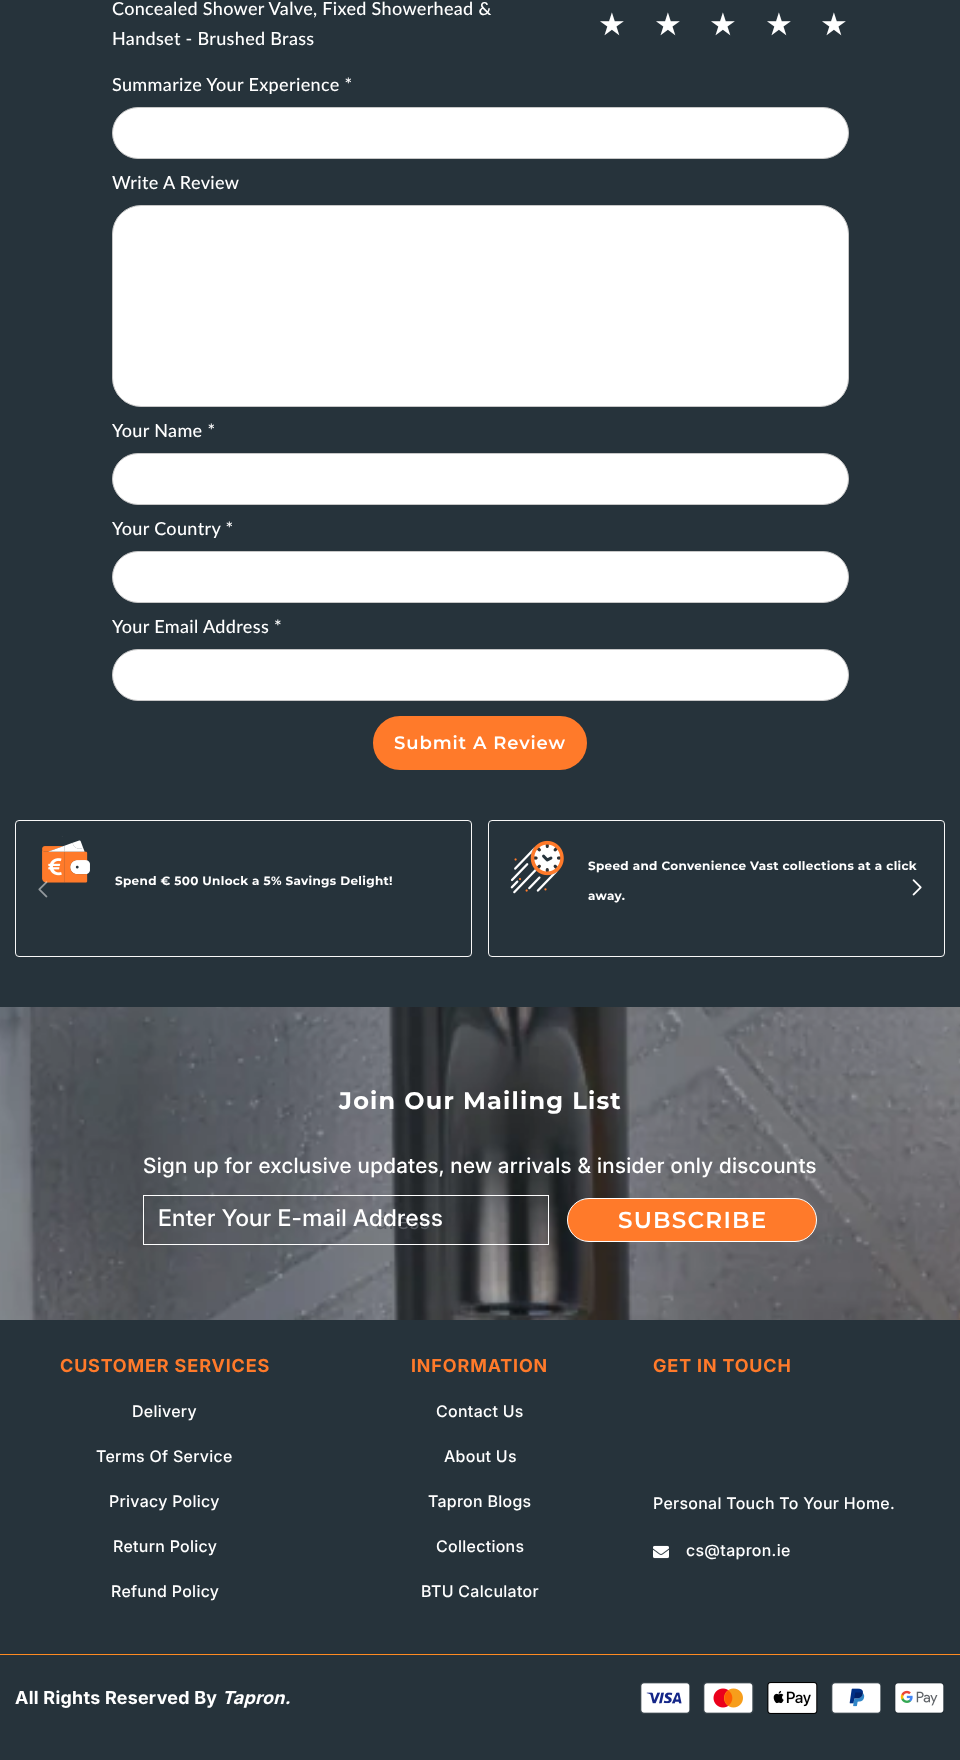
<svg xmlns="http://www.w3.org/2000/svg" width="960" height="1760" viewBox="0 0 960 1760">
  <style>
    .t1 { font: 500 18px Lato; letter-spacing: 0.32px; fill: #fff; }
    .t2 { font: 31px DejaVu Sans; letter-spacing: 1px; fill: #fff; }
    .t3 { font: 500 18px Lato; letter-spacing: 0.35px; fill: #fff; }
    .t4 { font: 600 18px Montserrat; letter-spacing: 0.9px; fill: #fff; }
    .t5 { font: bold 12px Montserrat; letter-spacing: 0.32px; fill: #fff; }
    .t6 { font: bold 24px Montserrat; letter-spacing: 1.2px; fill: #fff; }
    .t7 { font: 500 21px Inter; letter-spacing: 0.32px; fill: #fff; }
    .t8 { font: 23px Lato; letter-spacing: 0.5px; fill: #595c62; }
    .t9 { font: 500 23px 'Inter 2'; letter-spacing: 0.32px; fill: #fff; }
    .t10 { font: 600 23px Montserrat; letter-spacing: 1.25px; fill: #fff; }
    .t11 { font: bold 18px Inter; letter-spacing: 0.9px; fill: #ff7a2a; }
    .t12 { font: 500 16px 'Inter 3'; letter-spacing: 0.32px; fill: #fff; }
    .t13 { font: bold 18px Inter; letter-spacing: 0.32px; fill: #fff; }
    .t14 { font: italic bold 18px Inter; letter-spacing: 0.32px; fill: #fff; }
  </style>
  <rect width="100%" height="100%" fill="#26333b"/>
  <text x="112" y="15" class="t1">Concealed Shower Valve, Fixed Showerhead &amp;</text>
  <text x="112" y="45" class="t1">Handset - Brushed Brass</text>
  <text x="598" y="35" class="t2">★</text>
  <text x="654" y="35" class="t2">★</text>
  <text x="709" y="35" class="t2">★</text>
  <text x="765" y="35" class="t2">★</text>
  <text x="820" y="35" class="t2">★</text>
  <text x="112" y="91" class="t3">Summarize Your Experience *</text>
  <rect x="112.5" y="107.5" width="736" height="51" rx="25.5" fill="#fff" stroke="#c7c7c7"/>
  <text x="112" y="189" class="t3">Write A Review</text>
  <rect x="112.5" y="205.5" width="736" height="201" rx="28.5" fill="#fff" stroke="#c7c7c7"/>
  <text x="112" y="437" class="t3">Your Name *</text>
  <rect x="112.5" y="453.5" width="736" height="51" rx="25.5" fill="#fff" stroke="#c7c7c7"/>
  <text x="112" y="535" class="t3">Your Country *</text>
  <rect x="112.5" y="551.5" width="736" height="51" rx="25.5" fill="#fff" stroke="#c7c7c7"/>
  <text x="112" y="633" class="t3">Your Email Address *</text>
  <rect x="112.5" y="649.5" width="736" height="51" rx="25.5" fill="#fff" stroke="#c7c7c7"/>
  <rect x="374" y="717" width="212" height="52" rx="26" fill="#ff7a2a" stroke="#ff7a2a" stroke-width="2"/>
  <text x="394" y="749" class="t4">Submit A Review</text>
  <rect x="15.5" y="820.5" width="456" height="136" rx="3.5" fill="none" stroke="#f8f8f8"/>
  <image x="42" y="836" width="48" height="47" href="images/1.png"/>
  <text x="115" y="885" class="t5">Spend € 500 Unlock a 5% Savings Delight!</text>
  <rect x="488.5" y="820.5" width="456" height="136" rx="3.5" fill="none" stroke="#f8f8f8"/>
  <image x="510" y="840" width="54" height="54" href="images/2.png"/>
  <text x="588" y="870" class="t5">Speed and Convenience Vast collections at a click</text>
  <text x="588" y="900" class="t5">away.</text>
  <image x="38" y="881" width="10" height="17" href="images/3.png"/>
  <image x="912" y="879" width="10" height="17" href="images/4.png"/>
  <image x="0" y="1007" width="960" height="313" href="images/5.png"/>
  <text x="339" y="1109" class="t6">Join Our Mailing List</text>
  <text x="143" y="1173" class="t7">Sign up for exclusive updates, new arrivals &amp; insider only discounts</text>
  <rect x="143.5" y="1195.5" width="405" height="49" fill="none" stroke="#fff"/>
  <text x="334" y="1229" class="t8">l</text>
  <text x="375" y="1229" class="t8">dress</text>
  <text x="158" y="1226" class="t9">Enter Your E-mail Address</text>
  <rect x="567.5" y="1198.5" width="249" height="43" rx="21.5" fill="#ff7a2a" stroke="#fff"/>
  <text x="618" y="1228" class="t10">SUBSCRIBE</text>
  <text x="60" y="1372" class="t11">CUSTOMER SERVICES</text>
  <text x="132" y="1417" class="t12">Delivery</text>
  <text x="96" y="1462" class="t12">Terms Of Service</text>
  <text x="109" y="1507" class="t12">Privacy Policy</text>
  <text x="113" y="1552" class="t12">Return Policy</text>
  <text x="111" y="1597" class="t12">Refund Policy</text>
  <text x="411" y="1372" class="t11">INFORMATION</text>
  <text x="436" y="1417" class="t12">Contact Us</text>
  <text x="444" y="1462" class="t12">About Us</text>
  <text x="428" y="1507" class="t12">Tapron Blogs</text>
  <text x="436" y="1552" class="t12">Collections</text>
  <text x="421" y="1597" class="t12">BTU Calculator</text>
  <text x="653" y="1372" class="t11">GET IN TOUCH</text>
  <text x="653" y="1509" class="t12">Personal Touch To Your Home.</text>
  <image x="653" y="1545" width="16" height="14" href="images/6.png"/>
  <text x="686" y="1556" class="t12">cs@tapron.ie</text>
  <rect x="0" y="1654" width="960" height="1" fill="#ff8b21"/>
  <text x="15" y="1704" class="t13">All Rights Reserved By</text>
  <text x="222" y="1704" class="t14">Tapron.</text>
  <image x="640" y="1682" width="50" height="32" href="images/7.png"/>
  <image x="703" y="1682" width="51" height="32" href="images/8.png"/>
  <image x="767" y="1682" width="51" height="32" href="images/9.png"/>
  <image x="831" y="1682" width="50" height="32" href="images/10.png"/>
  <image x="894" y="1682" width="50" height="32" href="images/11.png"/>
</svg>
